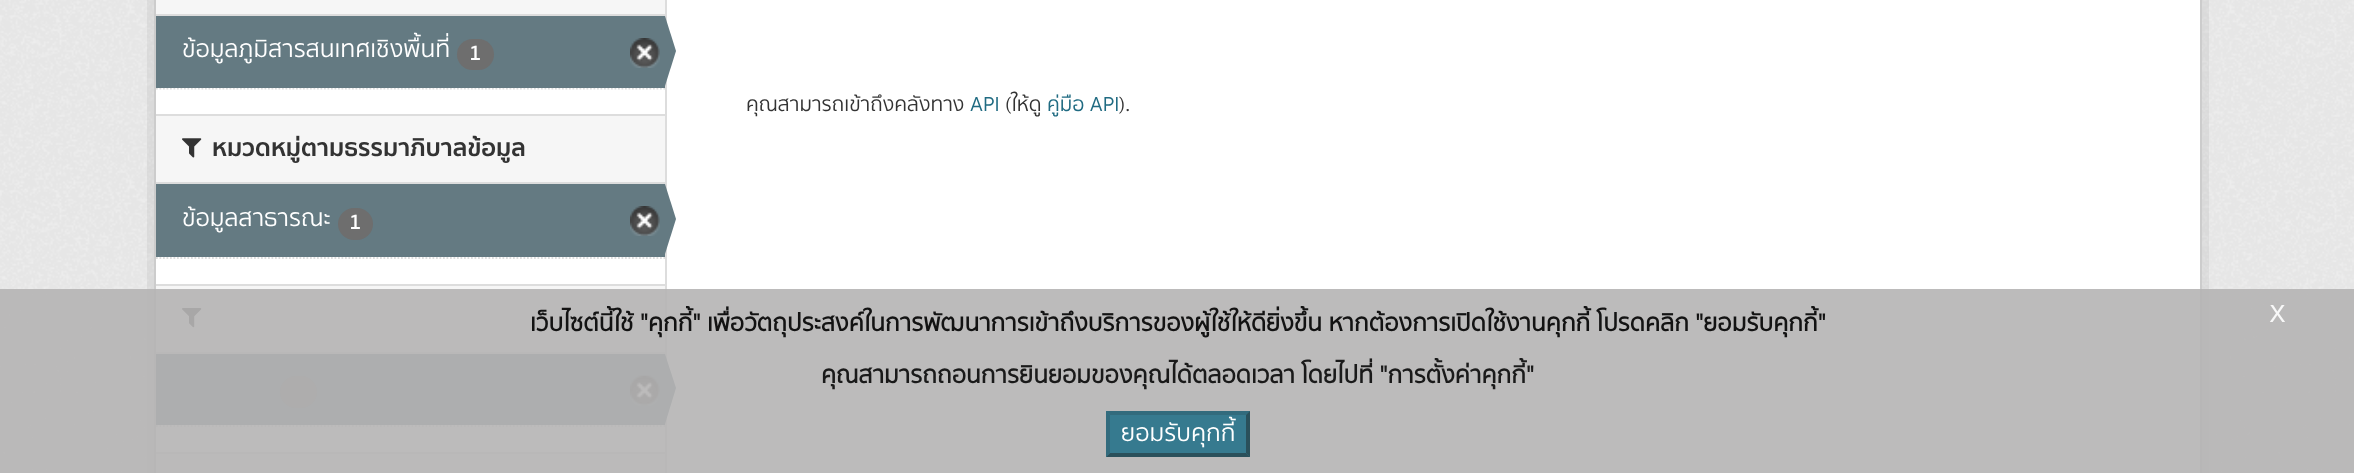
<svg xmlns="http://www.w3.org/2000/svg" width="2354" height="473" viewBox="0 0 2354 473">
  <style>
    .t1 { font: 24.5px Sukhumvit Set; fill: #fff; }
    .t2 { font: bold 21px 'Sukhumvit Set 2'; fill: #fff; }
    .t3 { font: bold 24.5px Sukhumvit Set; fill: #333; }
    .t4 { font: 20.75px Sukhumvit Set; fill: #333; }
    .t5 { font: 20.75px Sukhumvit Set; fill: #206b82; }
    .t6 { font: bold 24.5px 'Sukhumvit Set 2'; fill: #131313; }
    .t7 { font: 35px Sukhumvit Set; fill: #f8f8f8; }
    .t8 { font: bold 24.5px 'Sukhumvit Set 2'; fill: #1a1a1a; }
  </style>
  <rect width="100%" height="100%" fill="#eee"/>
  <image x="0" y="0" width="2354" height="473" href="images/1.png"/>
  <rect x="150.5" y="-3.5" width="2055" height="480" fill="none" stroke="#0000000d" stroke-width="7"/>
  <rect x="155" y="-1" width="2046" height="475" fill="#fff" stroke="#ccc" stroke-width="2"/>
  <rect x="156" y="0" width="509" height="14" fill="#f6f6f6"/>
  <rect x="156" y="14" width="509" height="2" fill="#ddd"/>
  <path d="M156 88.5H665" fill="none" stroke="#ddd" stroke-width="1.8" stroke-dasharray="1.75 1.75"/>
  <rect x="156" y="16" width="509" height="72" fill="#647a82"/>
  <text x="182" y="57" class="t1">ข้อมูลภูมิสารสนเทศเชิงพื้นที่</text>
  <rect x="457" y="39" width="37" height="31" rx="15.5" fill="#6e6e6e"/>
  <text x="469" y="60" class="t2">1</text>
  <image x="630" y="38" width="30" height="30" href="images/2.png"/>
  <rect x="665" y="0" width="2" height="473" fill="#ddd"/>
  <path d="M665 86V16L676 51Z" fill="#647a82"/>
  <rect x="156" y="116" width="509" height="66" fill="#f6f6f6"/>
  <rect x="156" y="114" width="509" height="2" fill="#ddd"/>
  <rect x="156" y="182" width="509" height="2" fill="#ddd"/>
  <image x="182" y="138" width="20" height="20" href="images/3.png"/>
  <text x="212" y="156" class="t3">หมวดหมู่ตามธรรมาภิบาลข้อมูล</text>
  <rect x="156" y="184" width="509" height="73" fill="#647a82"/>
  <text x="182" y="226" class="t1">ข้อมูลสาธารณะ</text>
  <rect x="338" y="208" width="35" height="32" rx="16" fill="#6e6e6e"/>
  <text x="349" y="229" class="t2">1</text>
  <image x="630" y="206" width="30" height="30" href="images/2.png"/>
  <path d="M665 254V184L676 219Z" fill="#647a82"/>
  <path d="M156 258H665" fill="none" stroke="#ddd" stroke-width="1.8" stroke-dasharray="1.75 1.75"/>
  <rect x="156" y="286" width="509" height="66" fill="#f6f6f6"/>
  <rect x="156" y="284" width="509" height="2" fill="#ddd"/>
  <rect x="156" y="352" width="509" height="2" fill="#ddd"/>
  <image x="182" y="308" width="20" height="20" href="images/4.png"/>
  <rect x="156" y="354" width="509" height="71" fill="#647a82"/>
  <rect x="280" y="376" width="37" height="32" rx="16" fill="#6e6e6e"/>
  <image x="630" y="375" width="30" height="31" href="images/5.png"/>
  <path d="M665 424V354L676 388Z" fill="#647a82"/>
  <path d="M156 426H665" fill="none" stroke="#ddd" stroke-width="1.8" stroke-dasharray="1.75 1.75"/>
  <rect x="156" y="454" width="509" height="19" fill="#f6f6f6"/>
  <rect x="156" y="452" width="509" height="2" fill="#ddd"/>
  <text x="746" y="111" class="t4">คุณสามารถเข้าถึงคลังทาง</text>
  <text x="970" y="111" class="t5">API</text>
  <text x="1005" y="111" class="t4">(ให้ดู</text>
  <text x="1047" y="111" class="t5">คู่มือ API</text>
  <text x="1119" y="111" class="t4">).</text>
  <rect x="0" y="289" width="2354" height="184" fill="#b5b4b4e6"/>
  <text x="530" y="331" class="t6">เว็บไซต์นี้ใช้ "คุกกี้" เพื่อวัตถุประสงค์ในการพัฒนาการเข้าถึงบริการของผู้ใช้ให้ดียิ่งขึ้น หากต้องการเปิดใช้งานคุกกี้ โปรดคลิก "ยอมรับคุกกี้"</text>
  <text x="2269" y="322" class="t7">x</text>
  <text x="821" y="383" class="t8">คุณสามารถถอนการยินยอมของคุณได้ตลอดเวลา โดยไปที่ "การตั้งค่าคุกกี้"</text>
  <rect x="1106" y="411" width="144" height="46" fill="#367a8f"/>
  <path d="M1106 411H1250L1246 415H1110Z" fill="#326b7d"/>
  <path d="M1250 411V457L1246 453V415Z" fill="#2a505b"/>
  <path d="M1250 457H1106L1110 453H1246Z" fill="#2a505b"/>
  <path d="M1106 457V411L1110 415V453Z" fill="#326b7d"/>
  <text x="1121" y="441" class="t1">ยอมรับคุกกี้</text>
</svg>
